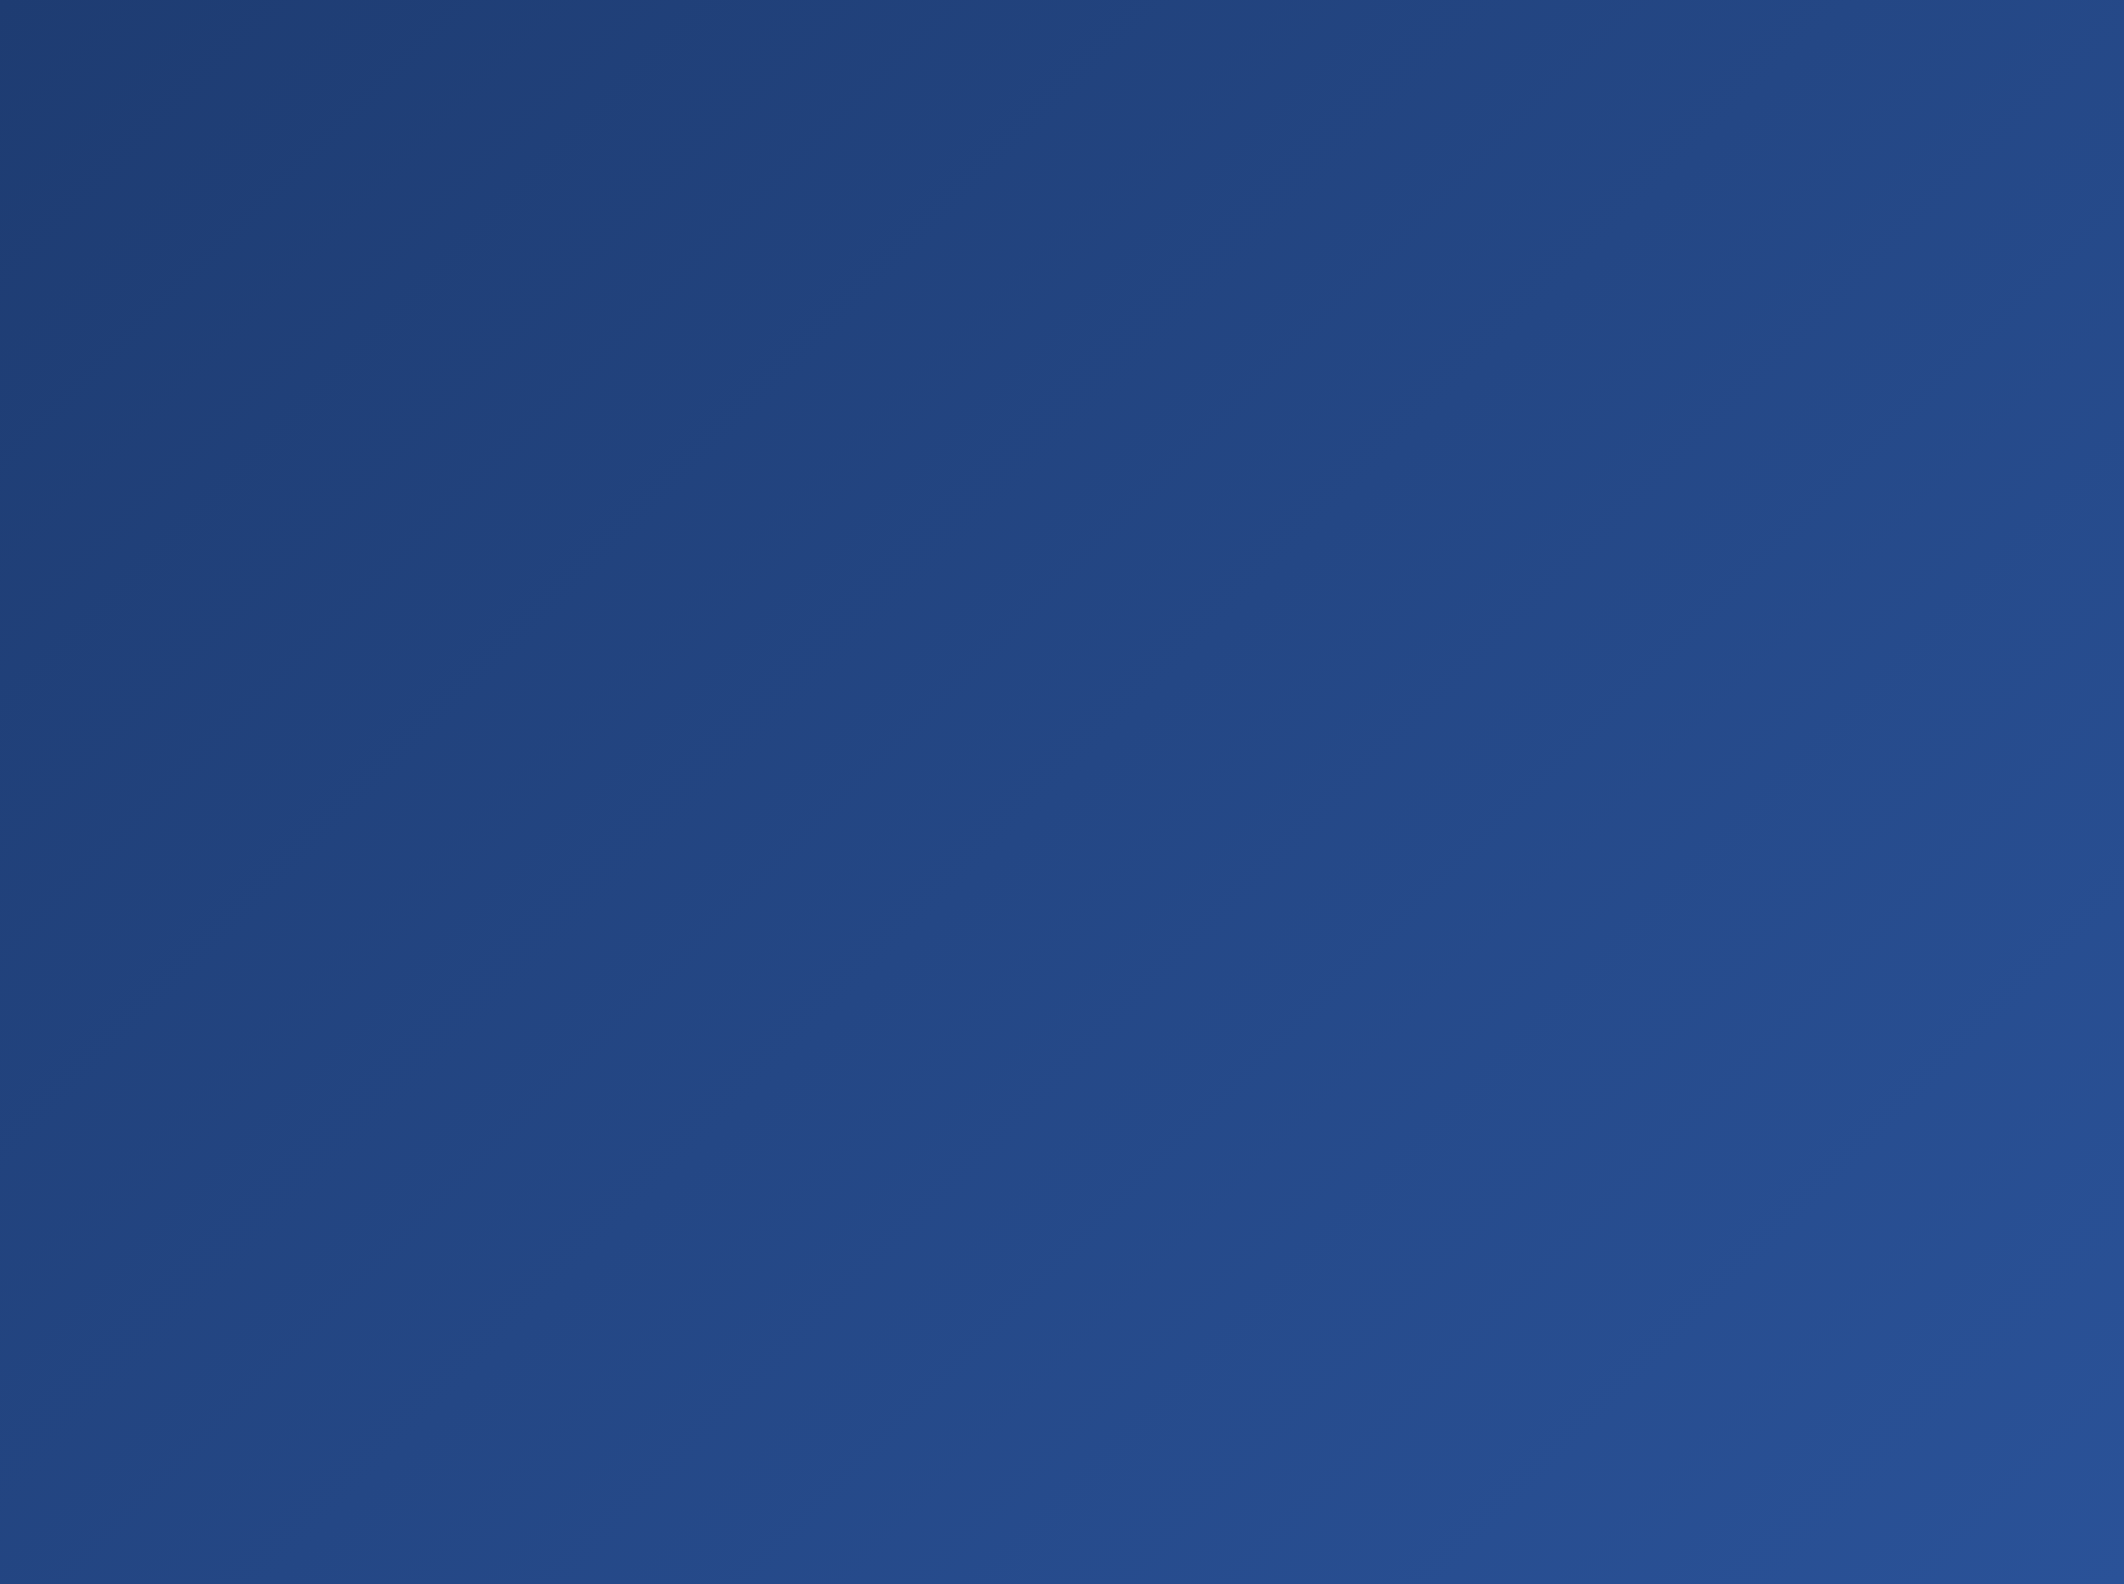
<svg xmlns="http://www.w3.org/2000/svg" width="2124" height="1584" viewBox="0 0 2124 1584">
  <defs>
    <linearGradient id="g1" gradientUnits="userSpaceOnUse" x1="135" y1="-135" x2="1990" y2="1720"><stop offset="0" stop-color="#1e3c72"/><stop offset="1" stop-color="#2a5298"/></linearGradient>
  </defs>
  <rect width="100%" height="100%" fill="#fff"/>
  <rect x="0" y="0" width="2124" height="1584" fill="url(#g1)"/>
</svg>
